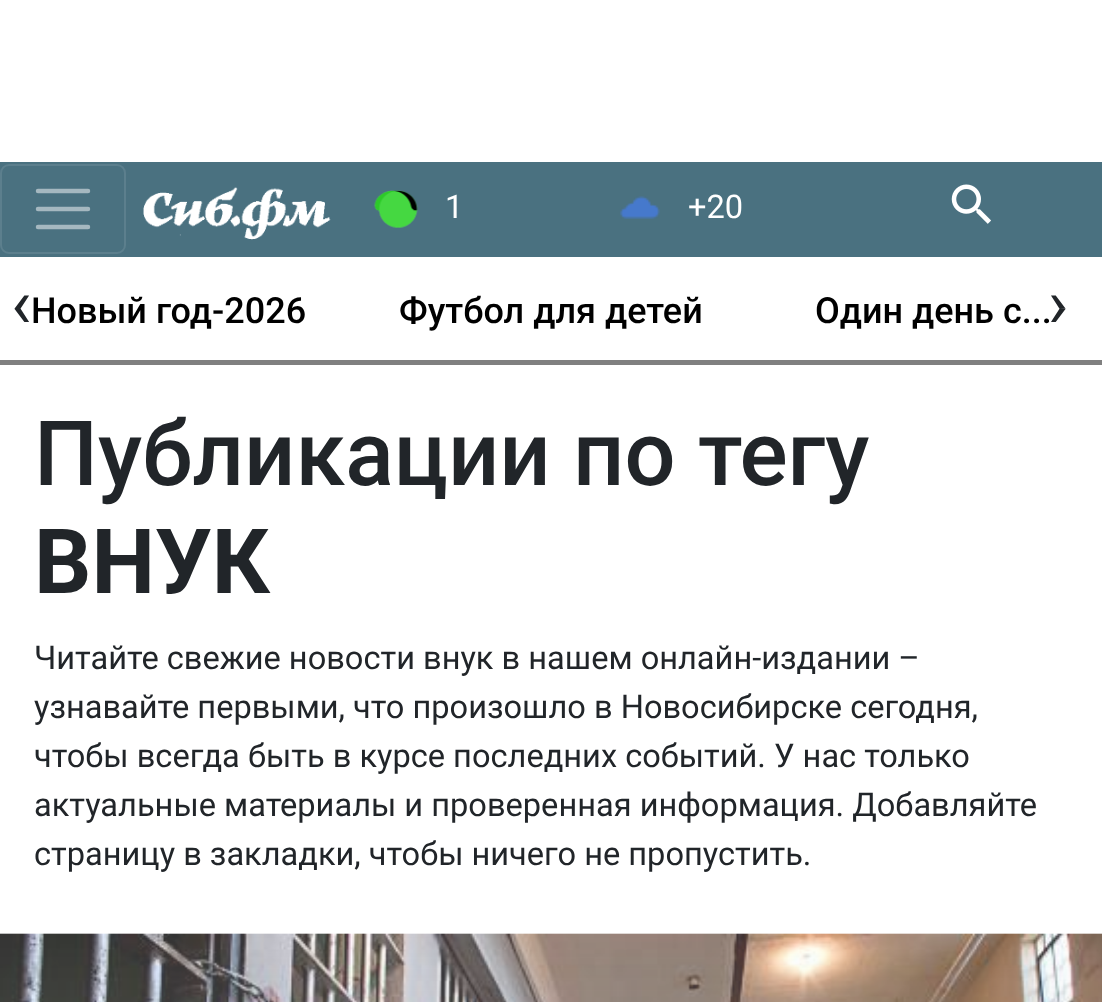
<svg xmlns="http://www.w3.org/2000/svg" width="1102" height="1002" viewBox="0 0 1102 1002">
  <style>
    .t1 { font: 32.6px Roboto; fill: #fff; }
    .t2 { font: 68px Roboto; fill: #212529; }
    .t3 { font: 500 36px Roboto; fill: #000; }
    .t4 { font: 500 90px Roboto; fill: #212529; }
    .t5 { font: bold 90px Roboto; fill: #212529; }
    .t6 { font: 32.6px Roboto; fill: #212529; }
  </style>
  <rect width="100%" height="100%" fill="#fff"/>
  <rect x="0" y="162" width="1102" height="95" fill="#4a7180"/>
  <rect x="1" y="165" width="124" height="88" rx="8" fill="none" stroke="#5c7f8d" stroke-width="2"/>
  <path d="M38 191H88M38 209H88M38 227H88" fill="none" stroke="#a5b8c0" stroke-width="4.5" stroke-linecap="round"/>
  <image x="143" y="187" width="188" height="53" href="images/1.png"/>
  <image x="374" y="190" width="44" height="38" href="images/2.png"/>
  <text x="445" y="218" class="t1">1</text>
  <image x="620" y="196" width="40" height="23" href="images/3.png"/>
  <text x="688" y="218" class="t1">+20</text>
  <image x="951" y="184" width="40" height="40" href="images/4.png"/>
  <rect x="0" y="360" width="1102" height="5" fill="#808080"/>
  <text x="11" y="327" class="t2">‹</text>
  <text x="1048" y="327" class="t2">›</text>
  <text x="31" y="323" class="t3">Новый год-2026</text>
  <text x="399" y="323" class="t3">Футбол для детей</text>
  <text x="815" y="323" class="t3">Один день с...</text>
  <text x="34" y="485" class="t4">Публикации по тегу</text>
  <text x="34" y="593" class="t5">ВНУК</text>
  <text x="34" y="669" class="t6">Читайте свежие новости внук в нашем онлайн-издании –</text>
  <text x="34" y="718" class="t6">узнавайте первыми, что произошло в Новосибирске сегодня,</text>
  <text x="34" y="767" class="t6">чтобы всегда быть в курсе последних событий. У нас только</text>
  <text x="34" y="816" class="t6">актуальные материалы и проверенная информация. Добавляйте</text>
  <text x="34" y="865" class="t6">страницу в закладки, чтобы ничего не пропустить.</text>
  <image x="0" y="933" width="1102" height="69" href="images/5.png"/>
</svg>
